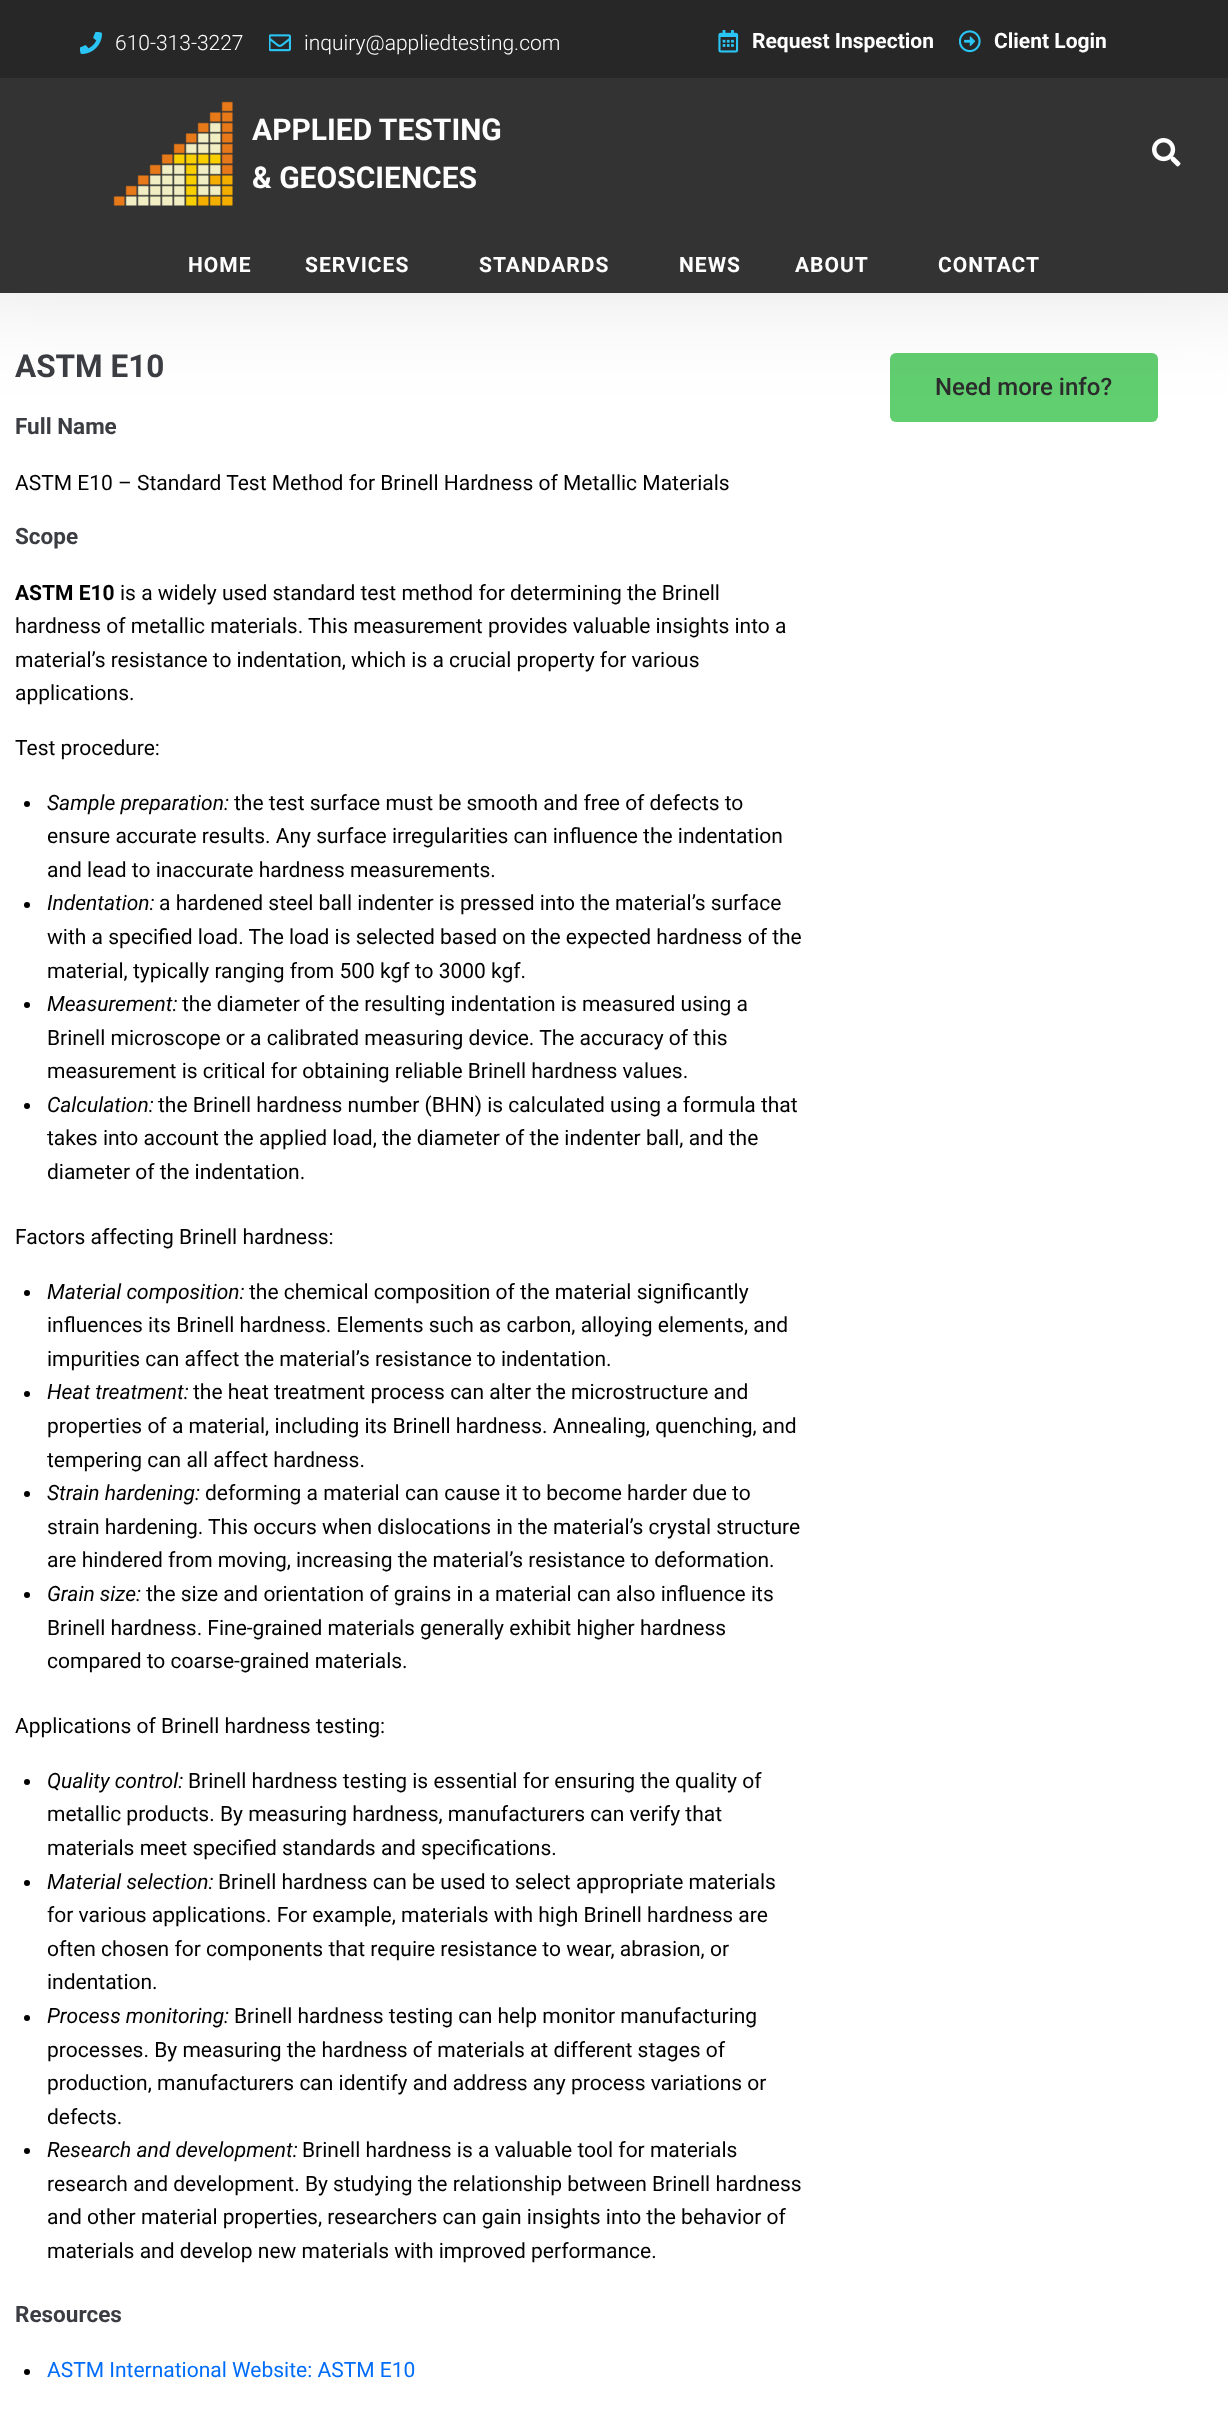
<svg xmlns="http://www.w3.org/2000/svg" width="1228" height="2413" viewBox="0 0 1228 2413">
  <style>
    .t1 { font: 300 21px Roboto; fill: #fff; }
    .t2 { font: bold 21px Roboto; fill: #fff; }
    .t3 { font: bold 30px Roboto; fill: #fff; }
    .t4 { font: bold 21px Roboto; letter-spacing: 1px; fill: #fff; }
    .t5 { font: bold 31.5px Roboto; fill: #3b3d42; }
    .t6 { font: bold 22.5px Roboto; fill: #3b3d42; }
    .t7 { font: 21px Roboto; fill: #000; }
    .t8 { font: bold 21px Roboto; fill: #000; }
    .t9 { font: italic 21px Roboto; fill: #000; }
    .t10 { font: 21px Roboto; fill: #006df9; }
    .t11 { font: 500 24px Roboto; fill: #2b2b2b; }
  </style>
  <rect width="100%" height="100%" fill="#fff"/>
  <rect x="890" y="353" width="268" height="69" rx="6" fill="#61ce70"/>
  <rect x="-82" y="-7" width="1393" height="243" fill="#00000040" filter="blur(75px)"/>
  <rect x="0" y="0" width="1228" height="78" fill="#272727"/>
  <image x="80" y="32" width="22" height="22" href="images/1.png"/>
  <text x="115" y="50" class="t1">610-313-3227</text>
  <image x="269" y="34" width="22" height="18" href="images/2.png"/>
  <text x="304" y="50" class="t1">inquiry@appliedtesting.com</text>
  <image x="718" y="30" width="21" height="23" href="images/3.png"/>
  <text x="752" y="48" class="t2">Request Inspection</text>
  <image x="959" y="30" width="22" height="23" href="images/4.png"/>
  <text x="994" y="48" class="t2">Client Login</text>
  <rect x="0" y="78" width="1228" height="215" fill="#333"/>
  <image x="113" y="101" width="120" height="105" href="images/5.png"/>
  <text x="252" y="140" class="t3">APPLIED TESTING</text>
  <text x="252" y="188" class="t3">&amp; GEOSCIENCES</text>
  <image x="1152" y="138" width="29" height="29" href="images/6.png"/>
  <text x="188" y="272" class="t4">HOME</text>
  <text x="305" y="272" class="t4">SERVICES</text>
  <text x="479" y="272" class="t4">STANDARDS</text>
  <text x="679" y="272" class="t4">NEWS</text>
  <text x="795" y="272" class="t4">ABOUT</text>
  <text x="938" y="272" class="t4">CONTACT</text>
  <text x="15" y="377" class="t5">ASTM E10</text>
  <text x="15" y="434" class="t6">Full Name</text>
  <text x="15" y="490" class="t7">ASTM E10 – Standard Test Method for Brinell Hardness of Metallic Materials</text>
  <text x="15" y="544" class="t6">Scope</text>
  <text x="15" y="600" class="t8">ASTM E10</text>
  <text x="120" y="600" class="t7">is a widely used standard test method for determining the Brinell</text>
  <text x="15" y="633" class="t7">hardness of metallic materials. This measurement provides valuable insights into a</text>
  <text x="15" y="667" class="t7">material’s resistance to indentation, which is a crucial property for various</text>
  <text x="15" y="700" class="t7">applications.</text>
  <text x="15" y="755" class="t7">Test procedure:</text>
  <circle cx="27" cy="804" r="3" fill="#000"/>
  <text x="47" y="810" class="t9">Sample preparation:</text>
  <text x="234" y="810" class="t7">the test surface must be smooth and free of defects to</text>
  <text x="47" y="843" class="t7">ensure accurate results. Any surface irregularities can influence the indentation</text>
  <text x="47" y="877" class="t7">and lead to inaccurate hardness measurements.</text>
  <circle cx="27" cy="905" r="3" fill="#000"/>
  <text x="47" y="910" class="t9">Indentation:</text>
  <text x="159" y="910" class="t7">a hardened steel ball indenter is pressed into the material’s surface</text>
  <text x="47" y="944" class="t7">with a specified load. The load is selected based on the expected hardness of the</text>
  <text x="47" y="978" class="t7">material, typically ranging from 500 kgf to 3000 kgf.</text>
  <circle cx="27" cy="1005" r="3" fill="#000"/>
  <text x="47" y="1011" class="t9">Measurement:</text>
  <text x="182" y="1011" class="t7">the diameter of the resulting indentation is measured using a</text>
  <text x="47" y="1045" class="t7">Brinell microscope or a calibrated measuring device. The accuracy of this</text>
  <text x="47" y="1078" class="t7">measurement is critical for obtaining reliable Brinell hardness values.</text>
  <circle cx="27" cy="1106" r="3" fill="#000"/>
  <text x="47" y="1112" class="t9">Calculation:</text>
  <text x="158" y="1112" class="t7">the Brinell hardness number (BHN) is calculated using a formula that</text>
  <text x="47" y="1145" class="t7">takes into account the applied load, the diameter of the indenter ball, and the</text>
  <text x="47" y="1179" class="t7">diameter of the indentation.</text>
  <text x="15" y="1244" class="t7">Factors affecting Brinell hardness:</text>
  <circle cx="27" cy="1293" r="3" fill="#000"/>
  <text x="47" y="1299" class="t9">Material composition:</text>
  <text x="249" y="1299" class="t7">the chemical composition of the material significantly</text>
  <text x="47" y="1332" class="t7">influences its Brinell hardness. Elements such as carbon, alloying elements, and</text>
  <text x="47" y="1366" class="t7">impurities can affect the material’s resistance to indentation.</text>
  <circle cx="27" cy="1394" r="3" fill="#000"/>
  <text x="47" y="1399" class="t9">Heat treatment:</text>
  <text x="193" y="1399" class="t7">the heat treatment process can alter the microstructure and</text>
  <text x="47" y="1433" class="t7">properties of a material, including its Brinell hardness. Annealing, quenching, and</text>
  <text x="47" y="1467" class="t7">tempering can all affect hardness.</text>
  <circle cx="27" cy="1494" r="3" fill="#000"/>
  <text x="47" y="1500" class="t9">Strain hardening:</text>
  <text x="205" y="1500" class="t7">deforming a material can cause it to become harder due to</text>
  <text x="47" y="1534" class="t7">strain hardening. This occurs when dislocations in the material’s crystal structure</text>
  <text x="47" y="1567" class="t7">are hindered from moving, increasing the material’s resistance to deformation.</text>
  <circle cx="27" cy="1595" r="3" fill="#000"/>
  <text x="47" y="1601" class="t9">Grain size:</text>
  <text x="146" y="1601" class="t7">the size and orientation of grains in a material can also influence its</text>
  <text x="47" y="1635" class="t7">Brinell hardness. Fine-grained materials generally exhibit higher hardness</text>
  <text x="47" y="1668" class="t7">compared to coarse-grained materials.</text>
  <text x="15" y="1733" class="t7">Applications of Brinell hardness testing:</text>
  <circle cx="27" cy="1782" r="3" fill="#000"/>
  <text x="47" y="1788" class="t9">Quality control:</text>
  <text x="188" y="1788" class="t7">Brinell hardness testing is essential for ensuring the quality of</text>
  <text x="47" y="1821" class="t7">metallic products. By measuring hardness, manufacturers can verify that</text>
  <text x="47" y="1855" class="t7">materials meet specified standards and specifications.</text>
  <circle cx="27" cy="1883" r="3" fill="#000"/>
  <text x="47" y="1889" class="t9">Material selection:</text>
  <text x="218" y="1889" class="t7">Brinell hardness can be used to select appropriate materials</text>
  <text x="47" y="1922" class="t7">for various applications. For example, materials with high Brinell hardness are</text>
  <text x="47" y="1956" class="t7">often chosen for components that require resistance to wear, abrasion, or</text>
  <text x="47" y="1989" class="t7">indentation.</text>
  <circle cx="27" cy="2018" r="3" fill="#000"/>
  <text x="47" y="2023" class="t9">Process monitoring:</text>
  <text x="234" y="2023" class="t7">Brinell hardness testing can help monitor manufacturing</text>
  <text x="47" y="2057" class="t7">processes. By measuring the hardness of materials at different stages of</text>
  <text x="47" y="2090" class="t7">production, manufacturers can identify and address any process variations or</text>
  <text x="47" y="2124" class="t7">defects.</text>
  <circle cx="27" cy="2151" r="3" fill="#000"/>
  <text x="47" y="2157" class="t9">Research and development:</text>
  <text x="302" y="2157" class="t7">Brinell hardness is a valuable tool for materials</text>
  <text x="47" y="2191" class="t7">research and development. By studying the relationship between Brinell hardness</text>
  <text x="47" y="2224" class="t7">and other material properties, researchers can gain insights into the behavior of</text>
  <text x="47" y="2258" class="t7">materials and develop new materials with improved performance.</text>
  <text x="15" y="2322" class="t6">Resources</text>
  <circle cx="27" cy="2372" r="3" fill="#000"/>
  <text x="47" y="2377" class="t10">ASTM International Website: ASTM E10</text>
  <text x="935" y="395" class="t11">Need more info?</text>
</svg>
